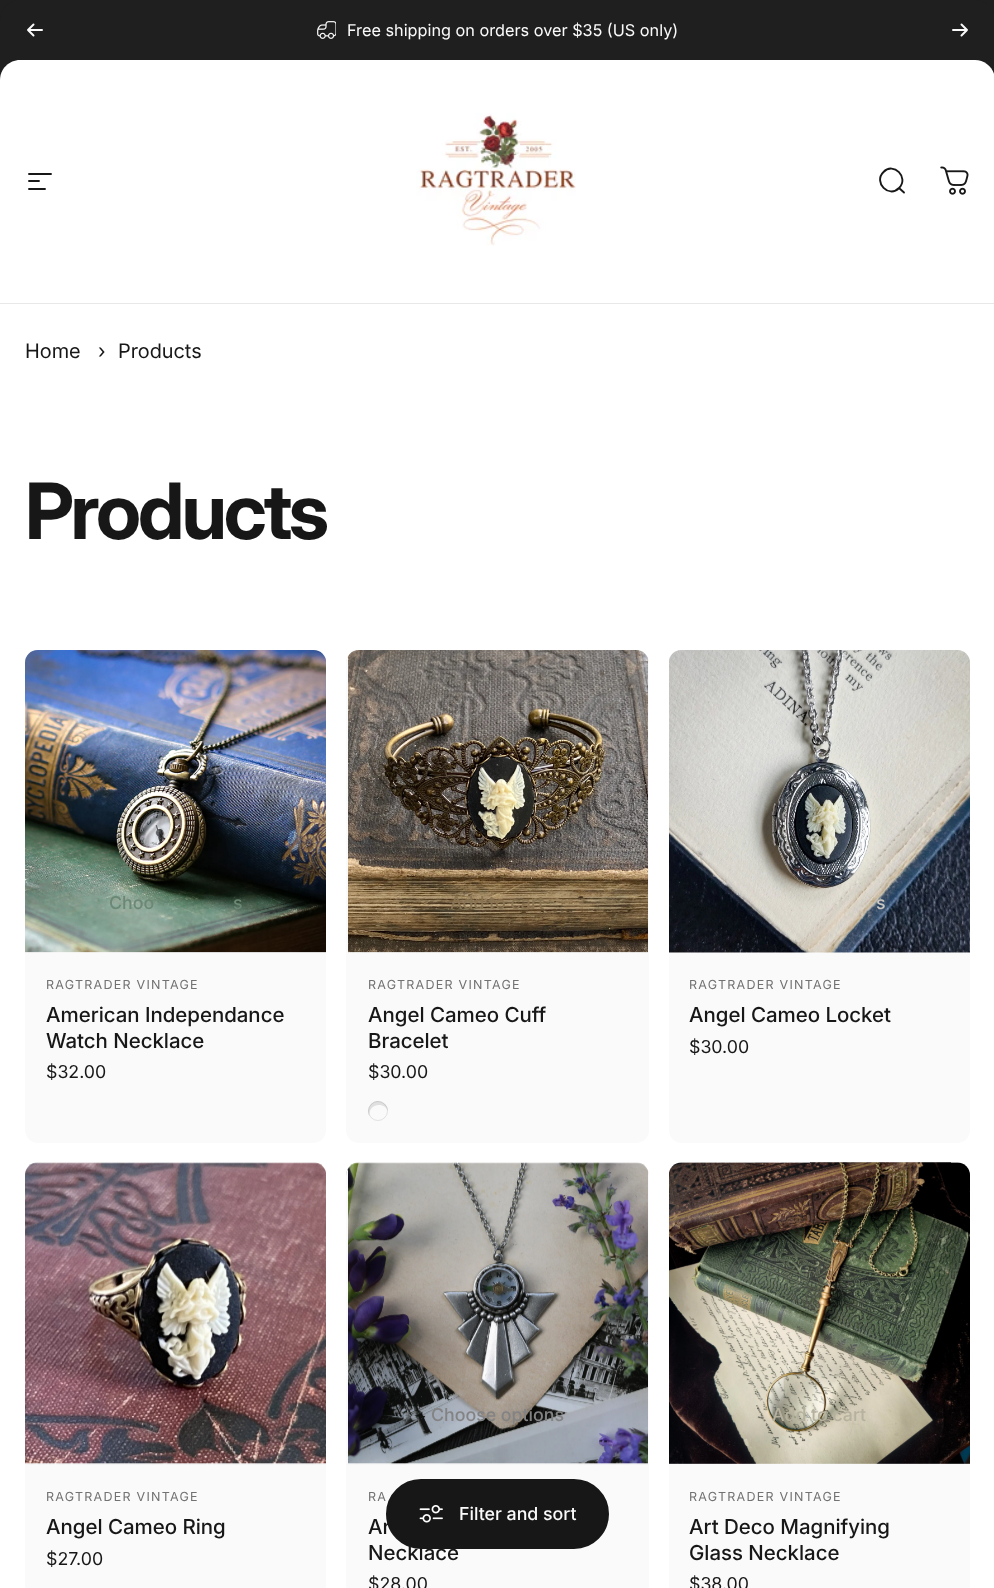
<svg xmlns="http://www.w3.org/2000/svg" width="994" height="1588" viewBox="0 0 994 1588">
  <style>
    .t1 { font: 16.25px Inter; fill: #fafafa; }
    .t2 { font: 20px 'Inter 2'; fill: #171717; }
    .t3 { font: bold 77.5px Inter; letter-spacing: -3px; fill: #171717; }
    .t4 { font: 500 17.75px 'Inter 2'; fill: #6b8875; }
    .t5 { font: 12.5px Inter; letter-spacing: 1.25px; fill: #727272; }
    .t6 { font: 500 20.6px Inter; fill: #171717; }
    .t7 { font: 17.75px Inter; fill: #171717; }
    .t8 { font: 500 17.75px 'Inter 2'; fill: #887352; }
    .t9 { font: 500 17.75px 'Inter 2'; fill: #cac8c0; }
    .t10 { font: 500 17.75px 'Inter 2'; fill: #838384; }
    .t11 { font: 500 17.75px 'Inter 2'; fill: #b5b19e; }
    .t12 { font: 500 17.75px 'Inter 2'; fill: #fafafa; }
  </style>
  <defs>
    <clipPath id="clip1"><rect x="346" y="650" width="303" height="493" rx="13"/></clipPath>
    <clipPath id="clip2"><rect x="346" y="1163" width="303" height="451" rx="13"/></clipPath>
  </defs>
  <rect width="100%" height="100%" fill="#fff"/>
  <rect x="0" y="0" width="994" height="20" fill="#1f1f1f"/>
  <path d="M20 0H975C986 0 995 9 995 20V80H0V20C0 9 9 0 20 0Z" fill="#1f1f1f"/>
  <path d="M33.5 24.5L28 30M28 30L33.5 35.5M28 30H42" fill="none" stroke="#fafafa" stroke-width="2" stroke-linecap="round" stroke-linejoin="round"/>
  <image x="317" y="21" width="19" height="18" href="images/1.png"/>
  <text x="347" y="36" class="t1">Free shipping on orders over $35 (US only)</text>
  <path d="M953 30H967M967 30L961.5 24.5M967 30L961.5 35.5" fill="none" stroke="#fafafa" stroke-width="2" stroke-linecap="round" stroke-linejoin="round"/>
  <path d="M20 60H975C986 60 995 69 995 80V303H0V80C0 69 9 60 20 60Z" fill="#fff"/>
  <path d="M29 174H51M29 181H39M29 189H45" fill="none" stroke="#171717" stroke-width="1.9" stroke-linecap="round"/>
  <image x="416" y="113" width="160" height="133" href="images/2.png"/>
  <path d="M904 192.5L899 188M899 188C909.5 177.5 893.5 161.5 883.5 172C873 182.5 889 198.5 899 188Z" fill="none" stroke="#171717" stroke-width="1.9" stroke-linecap="round"/>
  <image x="940" y="166" width="29" height="29" href="images/3.png"/>
  <rect x="0" y="303" width="994" height="1" fill="#e8e8e8"/>
  <text x="25" y="358" class="t2">Home</text>
  <text x="98" y="358" class="t2">›</text>
  <text x="118" y="358" class="t2">Products</text>
  <text x="25" y="539" class="t3">Products</text>
  <rect x="25" y="650" width="301" height="493" rx="13" fill="#fafafa"/>
  <image x="25" y="650" width="301" height="303" href="images/4.png"/>
  <text x="109" y="909" class="t4">Choo</text>
  <text x="233" y="909" class="t4">s</text>
  <text x="46" y="989" class="t5">RAGTRADER VINTAGE</text>
  <text x="46" y="1022" class="t6">American Independance</text>
  <text x="46" y="1048" class="t6">Watch Necklace</text>
  <text x="46" y="1078" class="t7">$32.00</text>
  <rect x="346" y="650" width="303" height="493" rx="13" fill="#fafafa"/>
  <image x="346" y="650" width="303" height="303" href="images/5.png"/>
  <g clip-path="url(#clip1)">
    <rect x="346" y="650" width="2" height="303" fill="#fafafa"/>
    <rect x="648" y="650" width="1" height="303" fill="#fafafa"/>
  </g>
  <text x="450" y="909" class="t8">Add to cart</text>
  <text x="368" y="989" class="t5">RAGTRADER VINTAGE</text>
  <text x="368" y="1022" class="t6">Angel Cameo Cuff</text>
  <text x="368" y="1048" class="t6">Bracelet</text>
  <text x="368" y="1078" class="t7">$30.00</text>
  <path d="M379 1105C383.5 1105 386.5 1107.5 388 1111C388 1108.5 387 1106 385 1104C376.5 1095.5 364 1106 369.5 1116C369 1110.5 372 1105 379 1105Z" fill="#e0e0e0"/>
  <circle cx="378" cy="1111" r="9.5" fill="none" stroke="#1717171c"/>
  <rect x="669" y="650" width="301" height="493" rx="13" fill="#fafafa"/>
  <image x="669" y="650" width="301" height="303" href="images/6.png"/>
  <text x="876" y="909" class="t9">s</text>
  <text x="689" y="989" class="t5">RAGTRADER VINTAGE</text>
  <text x="689" y="1022" class="t6">Angel Cameo Locket</text>
  <text x="689" y="1053" class="t7">$30.00</text>
  <rect x="25" y="1163" width="301" height="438" rx="13" fill="#fafafa"/>
  <image x="25" y="1162" width="301" height="303" href="images/7.png"/>
  <text x="46" y="1501" class="t5">RAGTRADER VINTAGE</text>
  <text x="46" y="1534" class="t6">Angel Cameo Ring</text>
  <text x="46" y="1565" class="t7">$27.00</text>
  <rect x="346" y="1163" width="303" height="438" rx="13" fill="#fafafa"/>
  <image x="346" y="1162" width="303" height="303" href="images/8.png"/>
  <g clip-path="url(#clip2)">
    <rect x="346" y="1163" width="2" height="301" fill="#fafafa"/>
    <rect x="648" y="1163" width="1" height="301" fill="#fafafa"/>
  </g>
  <text x="431" y="1421" class="t10">Choose options</text>
  <text x="368" y="1501" class="t5">RA</text>
  <text x="368" y="1534" class="t6">Ar</text>
  <text x="368" y="1560" class="t6">Necklace</text>
  <text x="368" y="1590" class="t7">$28.00</text>
  <rect x="669" y="1163" width="301" height="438" rx="13" fill="#fafafa"/>
  <image x="669" y="1162" width="301" height="302" href="images/9.png"/>
  <text x="772" y="1421" class="t11">Add to cart</text>
  <text x="689" y="1501" class="t5">RAGTRADER VINTAGE</text>
  <text x="689" y="1534" class="t6">Art Deco Magnifying</text>
  <text x="689" y="1560" class="t6">Glass Necklace</text>
  <text x="689" y="1590" class="t7">$38.00</text>
  <rect x="387.5" y="1480.5" width="220" height="67" rx="33.5" fill="#171717" stroke="#171717" stroke-width="3"/>
  <image x="419" y="1505" width="24" height="18" href="images/10.png"/>
  <text x="459" y="1520" class="t12">Filter and sort</text>
</svg>
